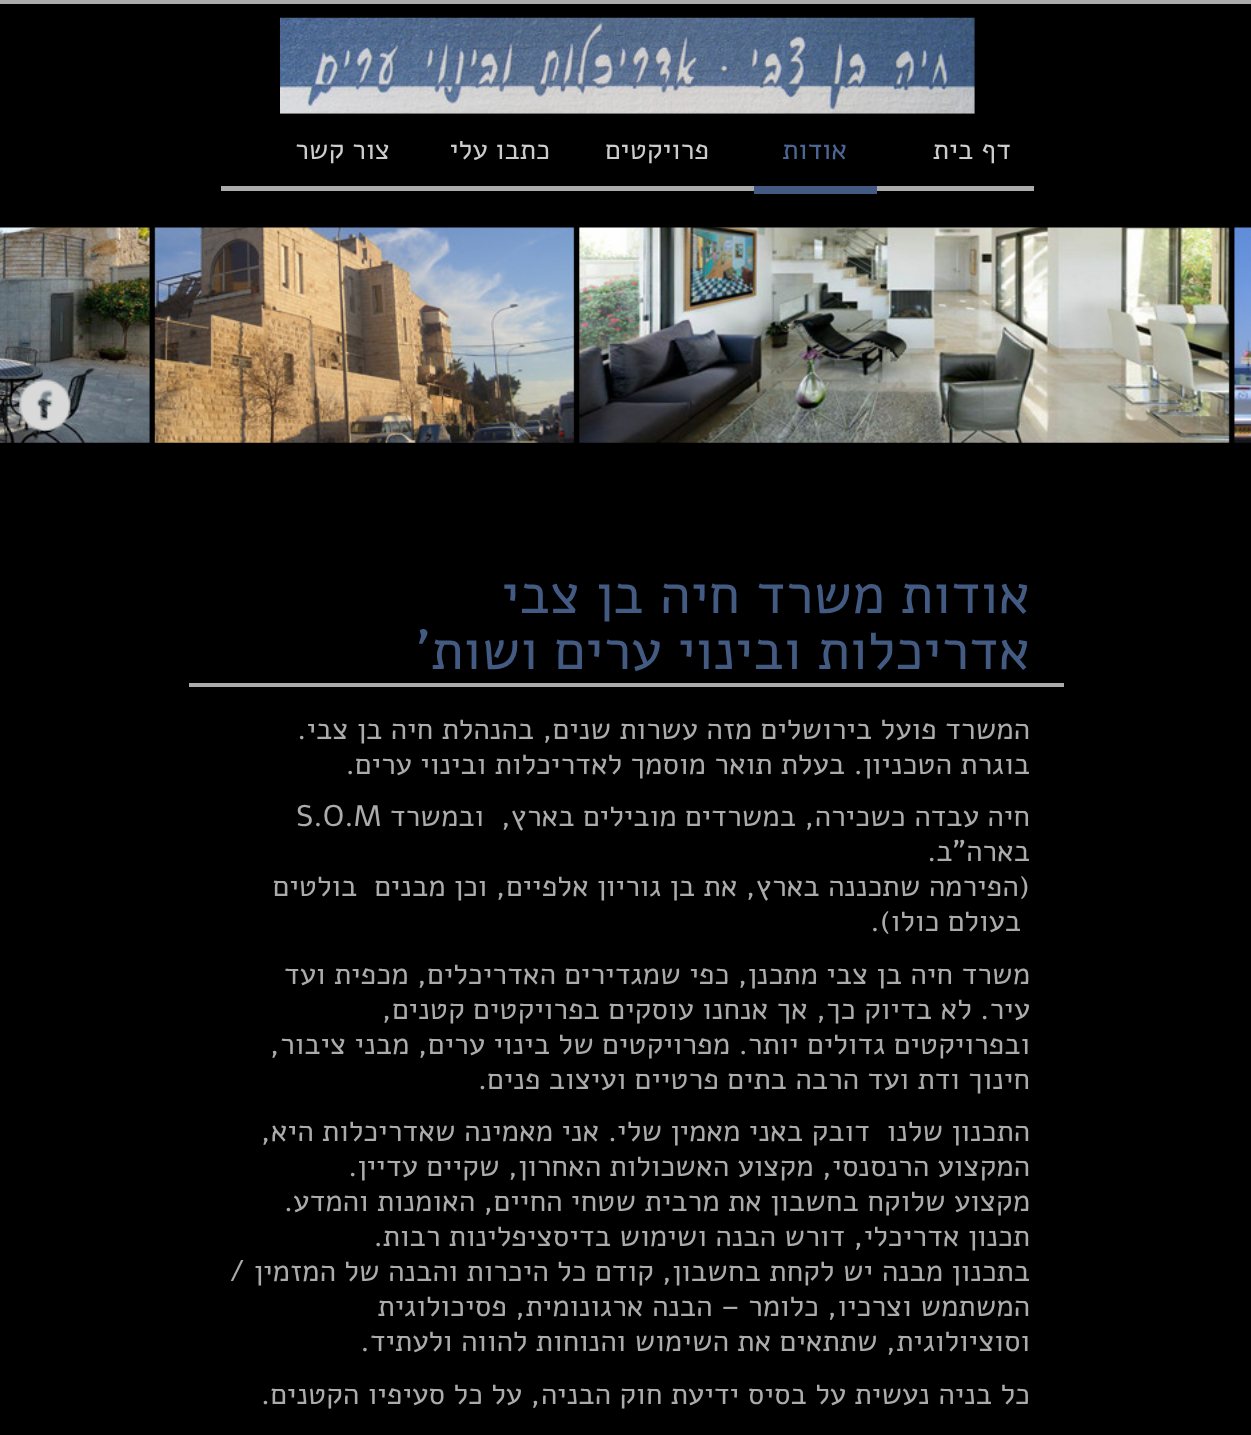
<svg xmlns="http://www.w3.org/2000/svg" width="1251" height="1435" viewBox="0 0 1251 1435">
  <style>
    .t1 { font: 28px Alef; direction: rtl; fill: #ccc; }
    .t2 { font: 28px Alef; direction: rtl; fill: #4c6793; }
    .t3 { font: 56px Alef; direction: rtl; fill: #435b83; }
    .t4 { font: 29.75px Alef; direction: rtl; fill: #ababab; }
    .t5 { font: 29.75px Alef; fill: #ababab; }
  </style>
  <rect width="100%" height="100%" fill="#000"/>
  <rect x="0" y="0" width="1251" height="4" fill="#ababab"/>
  <image x="280" y="17" width="695" height="97" href="images/1.png"/>
  <rect x="221" y="186" width="813" height="5" fill="#ababab"/>
  <text x="1011" y="159" class="t1">דף בית</text>
  <rect x="754" y="186" width="123" height="8" fill="#435b83"/>
  <text x="847" y="159" class="t2">אודות</text>
  <text x="709" y="159" class="t1">פרויקטים</text>
  <text x="550" y="159" class="t1">כתבו עלי</text>
  <text x="390" y="159" class="t1">צור קשר</text>
  <image x="0" y="227" width="1251" height="216" href="images/2.png"/>
  <image x="18" y="379" width="53" height="52" href="images/3.png"/>
  <text x="1030" y="613" class="t3">אודות משרד חיה בן צבי</text>
  <text x="1030" y="669" class="t3">אדריכלות ובינוי ערים ושות'</text>
  <rect x="189" y="683" width="875" height="4" fill="#ababab"/>
  <text x="1030" y="739" class="t4">המשרד פועל בירושלים מזה עשרות שנים, בהנהלת חיה בן צבי.</text>
  <text x="1030" y="774" class="t4">בוגרת הטכניון. בעלת תואר מוסמך לאדריכלות ובינוי ערים.</text>
  <text x="1030" y="826" class="t4" xml:space="preserve">חיה עבדה כשכירה, במשרדים מובילים בארץ,  ובמשרד</text>
  <text x="296" y="826" class="t5">S.O.M</text>
  <text x="1030" y="861" class="t4">בארה"ב.</text>
  <text x="1030" y="896" class="t4" xml:space="preserve">(הפירמה שתכננה בארץ, את בן גוריון אלפיים, וכן מבנים  בולטים</text>
  <text x="1021" y="931" class="t4">בעולם כולו).</text>
  <text x="1030" y="984" class="t4">משרד חיה בן צבי מתכנן, כפי שמגדירים האדריכלים, מכפית ועד</text>
  <text x="1030" y="1019" class="t4">עיר. לא בדיוק כך, אך אנחנו עוסקים בפרויקטים קטנים,</text>
  <text x="1030" y="1054" class="t4">ובפרויקטים גדולים יותר. מפרויקטים של בינוי ערים, מבני ציבור,</text>
  <text x="1030" y="1089" class="t4">חינוך ודת ועד הרבה בתים פרטיים ועיצוב פנים.</text>
  <text x="1030" y="1141" class="t4" xml:space="preserve">התכנון שלנו  דובק באני מאמין שלי. אני מאמינה שאדריכלות היא,</text>
  <text x="1030" y="1176" class="t4">המקצוע הרנסנסי, מקצוע האשכולות האחרון, שקיים עדיין.</text>
  <text x="1030" y="1211" class="t4">מקצוע שלוקח בחשבון את מרבית שטחי החיים, האומנות והמדע.</text>
  <text x="1030" y="1246" class="t4">תכנון אדריכלי, דורש הבנה ושימוש בדיסציפלינות רבות.</text>
  <text x="1030" y="1281" class="t4">בתכנון מבנה יש לקחת בחשבון, קודם כל היכרות והבנה של המזמין /</text>
  <text x="1030" y="1316" class="t4">המשתמש וצרכיו, כלומר – הבנה ארגונומית, פסיכולוגית</text>
  <text x="1030" y="1351" class="t4">וסוציולוגית, שתתאים את השימוש והנוחות להווה ולעתיד.</text>
  <text x="1030" y="1404" class="t4">כל בניה נעשית על בסיס ידיעת חוק הבניה, על כל סעיפיו הקטנים.</text>
</svg>
